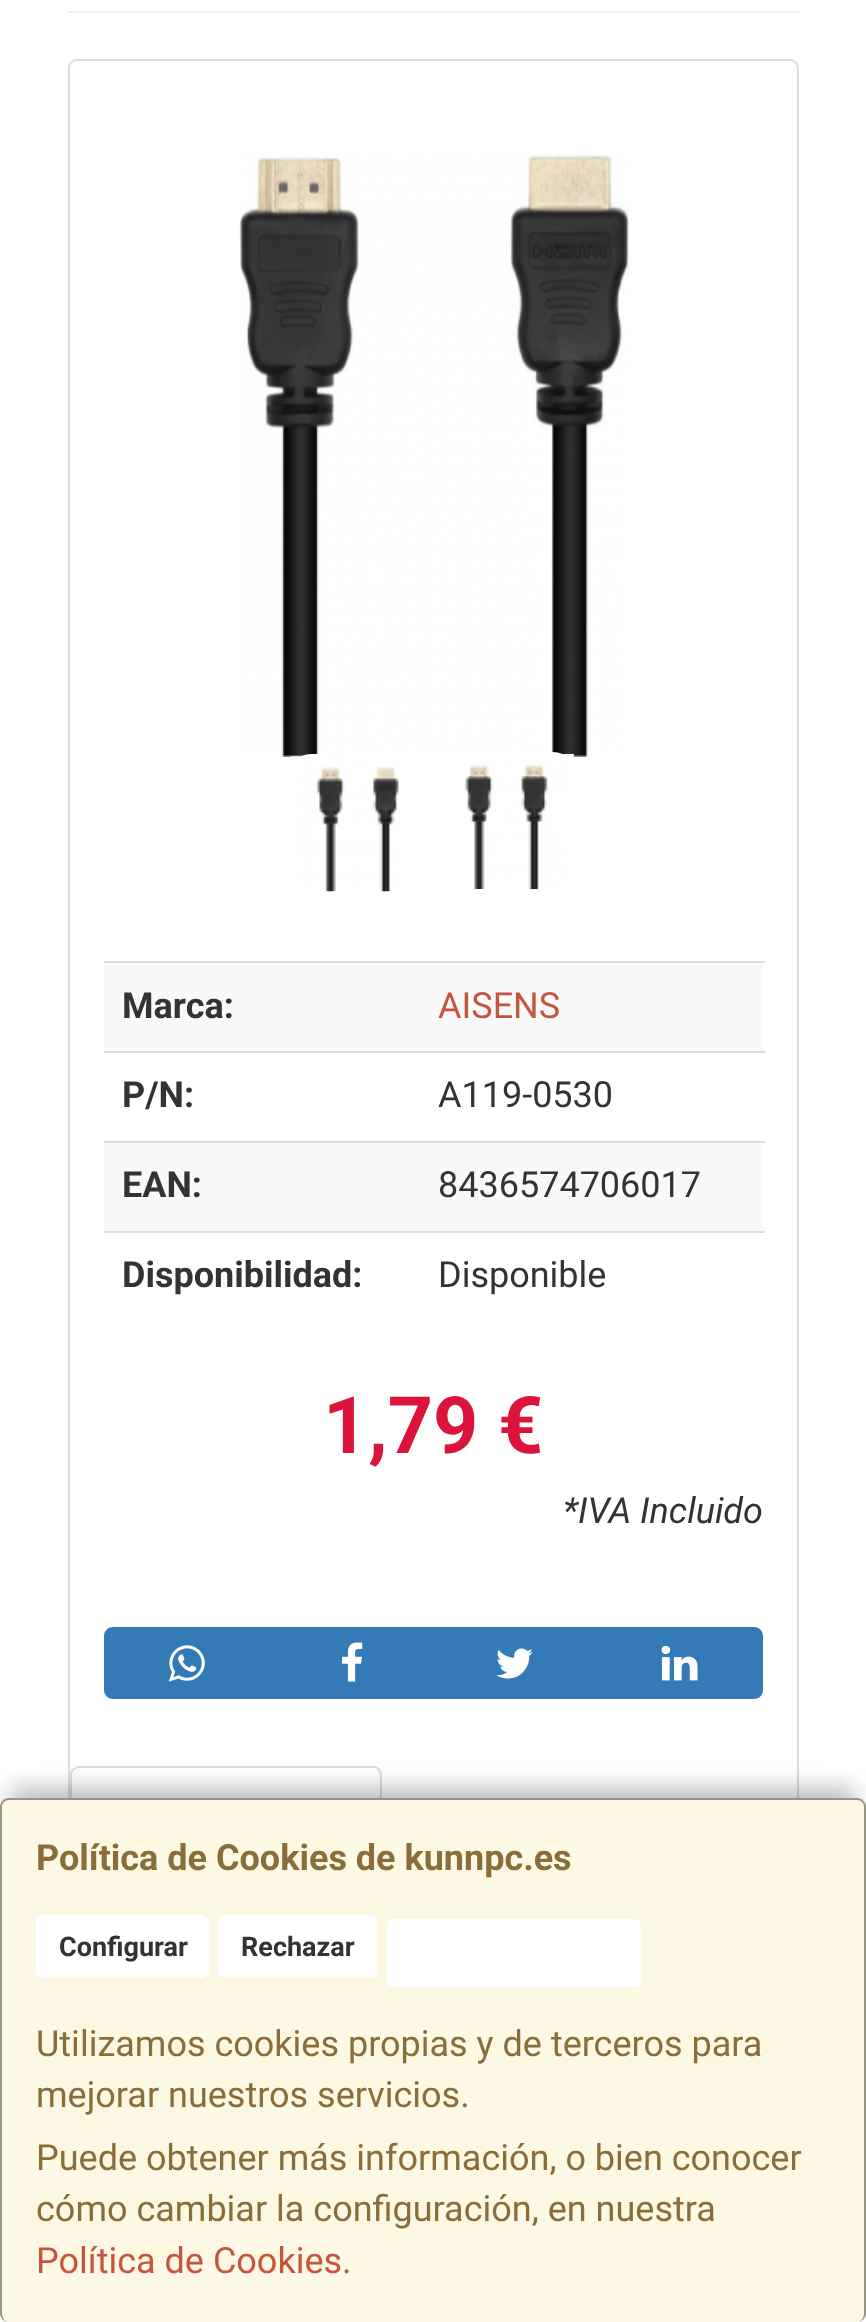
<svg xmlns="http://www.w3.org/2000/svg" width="866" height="2322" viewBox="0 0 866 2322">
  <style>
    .t1 { font: bold 36px Roboto; fill: #333; }
    .t2 { font: 36px Roboto; fill: #c5553c; }
    .t3 { font: 36px Roboto; fill: #333; }
    .t4 { font: bold 79px Roboto; fill: #dc143c; }
    .t5 { font: italic 36px Roboto; fill: #333; }
    .t6 { font: bold 36px Roboto; fill: #8a6d3b; }
    .t7 { font: bold 27px Roboto; fill: #333; }
    .t8 { font: 36px Roboto; fill: #8a6d3b; }
  </style>
  <rect width="100%" height="100%" fill="#fff"/>
  <rect x="68" y="11" width="731" height="2" fill="#eee"/>
  <rect x="69" y="60" width="729" height="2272" rx="8" fill="none" stroke="#ddd" stroke-width="2"/>
  <image x="239" y="150" width="391" height="607" href="images/1.png"/>
  <rect x="289" y="755" width="138" height="133" rx="22" fill="#fff" stroke="#fff" stroke-width="2"/>
  <image x="290" y="756" width="109" height="136" href="images/2.png"/>
  <rect x="438" y="753" width="137" height="133" rx="22" fill="none" stroke="#fff" stroke-width="2"/>
  <image x="465" y="754" width="109" height="135" href="images/3.png"/>
  <rect x="104" y="963" width="659" height="88" fill="#f9f9f9"/>
  <text x="122" y="1018" class="t1">Marca:</text>
  <rect x="104" y="961" width="661" height="2" fill="#ddd"/>
  <text x="438" y="1018" class="t2">AISENS</text>
  <text x="122" y="1107" class="t1">P/N:</text>
  <rect x="104" y="1051" width="661" height="2" fill="#ddd"/>
  <text x="438" y="1107" class="t3">A119-0530</text>
  <rect x="104" y="1143" width="659" height="88" fill="#f9f9f9"/>
  <text x="122" y="1197" class="t1">EAN:</text>
  <rect x="104" y="1141" width="661" height="2" fill="#ddd"/>
  <text x="438" y="1197" class="t3">8436574706017</text>
  <text x="122" y="1287" class="t1">Disponibilidad:</text>
  <rect x="104" y="1231" width="661" height="2" fill="#ddd"/>
  <text x="438" y="1287" class="t3">Disponible</text>
  <text x="323" y="1453" class="t4">1,79 €</text>
  <text x="563" y="1523" class="t5">*IVA Incluido</text>
  <path d="M113 1627H268V1699H113C108 1699 104 1695 104 1690V1636C104 1631 108 1627 113 1627Z" fill="#337ab7"/>
  <image x="168" y="1645" width="37" height="37" href="images/4.png"/>
  <rect x="268" y="1627" width="331" height="72" fill="#337ab7"/>
  <image x="341" y="1642" width="22" height="40" href="images/5.png"/>
  <path d="M599 1627H754C759 1627 763 1631 763 1636V1690C763 1695 759 1699 754 1699H599Z" fill="#337ab7"/>
  <image x="661" y="1646" width="37" height="35" href="images/6.png"/>
  <image x="496" y="1648" width="37" height="31" href="images/7.png"/>
  <path d="M79 1768C77 1768 75 1769 74 1770L72 1769C74 1768 75 1767 77 1766H376C377 1767 379 1768 380 1769L378 1771C377 1769 376 1768 374 1768Z" fill="#ddd"/>
  <path d="M380 1769C381 1771 382 1773 382 1775V1865L380 1863V1775C380 1774 379 1772 378 1771Z" fill="#ddd"/>
  <path d="M70 1865L72 1863V1775C72 1774 73 1772 74 1770L72 1769C71 1770 70 1773 70 1775Z" fill="#ddd"/>
  <rect x="11" y="1787" width="844" height="501" fill="#00000040" filter="blur(11px)"/>
  <rect x="0" y="1798" width="866" height="524" rx="9" fill="#fcf8e3"/>
  <path d="M9 1798H857C862 1798 866 1802 866 1807V2313C866 2318 862 2322 857 2322H9C4 2322 0 2318 0 2313V1807C0 1802 4 1798 9 1798ZM9 1800H857C861 1800 864 1803 864 1807V2313C864 2318 861 2322 857 2322H9C5 2322 2 2318 2 2313V1807C2 1803 5 1800 9 1800Z" fill="#00000066" fill-rule="evenodd"/>
  <text x="36" y="1870" class="t6">Política de Cookies de kunnpc.es</text>
  <rect x="36" y="1915" width="173" height="63" rx="7" fill="#fff"/>
  <text x="59" y="1956" class="t7">Configurar</text>
  <rect x="218" y="1915" width="160" height="63" rx="7" fill="#fff"/>
  <text x="241" y="1956" class="t7">Rechazar</text>
  <rect x="387" y="1919" width="254" height="68" rx="7" fill="#fff"/>
  <text x="36" y="2056" class="t8">Utilizamos cookies propias y de terceros para</text>
  <text x="36" y="2107" class="t8">mejorar nuestros servicios.</text>
  <text x="36" y="2170" class="t8">Puede obtener más información, o bien conocer</text>
  <text x="36" y="2221" class="t8">cómo cambiar la configuración, en nuestra</text>
  <text x="36" y="2273" class="t2">Política de Cookies</text>
  <text x="342" y="2273" class="t8">.</text>
</svg>
